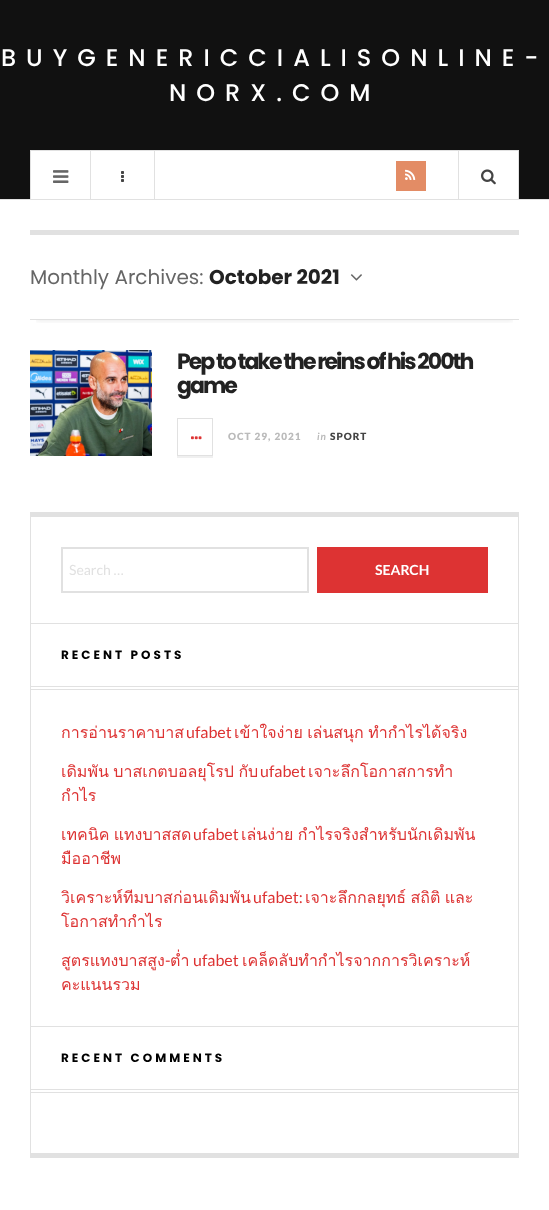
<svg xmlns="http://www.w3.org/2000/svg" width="549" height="1210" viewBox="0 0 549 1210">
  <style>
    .t1 { font: 500 24px Poppins; letter-spacing: 10px; fill: #fff; }
    .t2 { font: 20px Poppins; fill: #666; }
    .t3 { font: bold 20px Poppins; fill: #222; }
    .t4 { font: bold 22px Poppins; letter-spacing: -2px; fill: #222; }
    .t5 { font: 900 10px Lato; letter-spacing: 1px; fill: #bbb; }
    .t6 { font: italic bold 10px Lato; letter-spacing: 1px; fill: #bbb; }
    .t7 { font: 900 10px Lato; letter-spacing: 1px; fill: #444; }
    .t8 { font: 14px Lato; fill: #e1e1e1; }
    .t9 { font: bold 14px Lato; fill: #fff; }
    .t10 { font: bold 12px Poppins; letter-spacing: 3px; fill: #000; }
    .t11 { font: 16px Loma; fill: #d33; }
    .t12 { font: 16px Lato; fill: #d33; }
  </style>
  <defs>
    <clipPath id="clip1"><rect x="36" y="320" width="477" height="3"/></clipPath>
  </defs>
  <rect width="100%" height="100%" fill="#fff"/>
  <rect x="0" y="0" width="549" height="199" fill="#111"/>
  <rect x="0" y="199" width="549" height="1" fill="#e1e1e1"/>
  <text x="1" y="66" class="t1">BUYGENERICCIALISONLINE-</text>
  <text x="169" y="101" class="t1">NORX.COM</text>
  <rect x="30.5" y="150.5" width="488" height="49" fill="#fff" stroke="#e1e1e1"/>
  <rect x="90" y="151" width="1" height="48" fill="#e1e1e1"/>
  <image x="53" y="170" width="16" height="13" href="images/1.png"/>
  <rect x="154" y="151" width="1" height="48" fill="#e1e1e1"/>
  <image x="121" y="171" width="3" height="11" href="images/2.png"/>
  <rect x="396" y="161" width="30" height="30" fill="#e38c65"/>
  <image x="405" y="169" width="11" height="11" href="images/3.png"/>
  <rect x="458" y="151" width="1" height="48" fill="#e1e1e1"/>
  <image x="481" y="169" width="15" height="16" href="images/4.png"/>
  <rect x="30" y="230" width="489" height="5" fill="#e1e1e1"/>
  <rect x="30" y="1153" width="489" height="5" fill="#e1e1e1"/>
  <g clip-path="url(#clip1)">
    <rect x="36" y="247" width="477" height="73" fill="#0000001a" filter="blur(3px)"/>
  </g>
  <rect x="30" y="319" width="489" height="1" fill="#e1e1e1"/>
  <text x="30" y="284" class="t2">Monthly Archives:</text>
  <text x="209" y="284" class="t3">October 2021</text>
  <image x="350" y="274" width="12" height="7" href="images/5.png"/>
  <image x="30" y="350" width="122" height="106" href="images/6.png"/>
  <text x="177" y="369" class="t4">Pep to take the reins of his 200th</text>
  <text x="177" y="393" class="t4">game</text>
  <rect x="177" y="456" width="36" height="2" fill="#f0f0f0"/>
  <rect x="177.5" y="418.5" width="35" height="37" fill="none" stroke="#e1e1e1"/>
  <image x="191" y="436" width="11" height="4" href="images/7.png"/>
  <text x="228" y="440" class="t5">OCT 29, 2021</text>
  <text x="317" y="440" class="t6">in</text>
  <text x="330" y="440" class="t7">SPORT</text>
  <rect x="30" y="512" width="489" height="5" fill="#e1e1e1"/>
  <rect x="518" y="512" width="1" height="641" fill="#e1e1e1"/>
  <rect x="30" y="512" width="1" height="641" fill="#e1e1e1"/>
  <rect x="62" y="548" width="246" height="44" fill="none" stroke="#e1e1e1" stroke-width="2"/>
  <text x="69" y="575" class="t8">Search …</text>
  <rect x="317" y="547" width="171" height="46" fill="#d33"/>
  <text x="375" y="575" class="t9">SEARCH</text>
  <rect x="31" y="623" width="487" height="1" fill="#e1e1e1"/>
  <rect x="31" y="686" width="487" height="1" fill="#e1e1e1"/>
  <rect x="31" y="689" width="487" height="1" fill="#e1e1e1"/>
  <text x="61" y="659" class="t10">RECENT POSTS</text>
  <text x="61" y="738" class="t11">การอ่านราคาบาส</text>
  <text x="186" y="738" class="t12">ufabet</text>
  <text x="234" y="738" word-spacing="-1" class="t11">เข้าใจง่าย เล่นสนุก ทำกำไรได้จริง</text>
  <text x="61" y="777" word-spacing="-1" class="t11">เดิมพัน บาสเกตบอลยุโรป กับ</text>
  <text x="260" y="777" class="t12">ufabet</text>
  <text x="308" y="777" class="t11">เจาะลึกโอกาสการทำ</text>
  <text x="61" y="801" class="t11">กำไร</text>
  <text x="61" y="840" word-spacing="-1" class="t11">เทคนิค แทงบาสสด</text>
  <text x="193" y="840" class="t12">ufabet</text>
  <text x="241" y="840" word-spacing="-1" class="t11">เล่นง่าย กำไรจริงสำหรับนักเดิมพัน</text>
  <text x="61" y="864" class="t11">มืออาชีพ</text>
  <text x="61" y="903" class="t11">วิเคราะห์ทีมบาสก่อนเดิมพัน</text>
  <text x="253" y="903" class="t12">ufabet:</text>
  <text x="305" y="903" word-spacing="-1" class="t11">เจาะลึกกลยุทธ์ สถิติ และ</text>
  <text x="61" y="927" class="t11">โอกาสทำกำไร</text>
  <text x="61" y="966" class="t11">สูตรแทงบาสสูง</text>
  <text x="165" y="966" class="t12">-</text>
  <text x="170" y="966" class="t11">ต่ำ</text>
  <text x="193" y="966" class="t12">ufabet</text>
  <text x="242" y="966" class="t11">เคล็ดลับทำกำไรจากการวิเคราะห์</text>
  <text x="61" y="990" class="t11">คะแนนรวม</text>
  <rect x="31" y="1026" width="487" height="1" fill="#e1e1e1"/>
  <rect x="31" y="1089" width="487" height="1" fill="#e1e1e1"/>
  <rect x="31" y="1092" width="487" height="1" fill="#e1e1e1"/>
  <text x="61" y="1062" class="t10">RECENT COMMENTS</text>
</svg>
